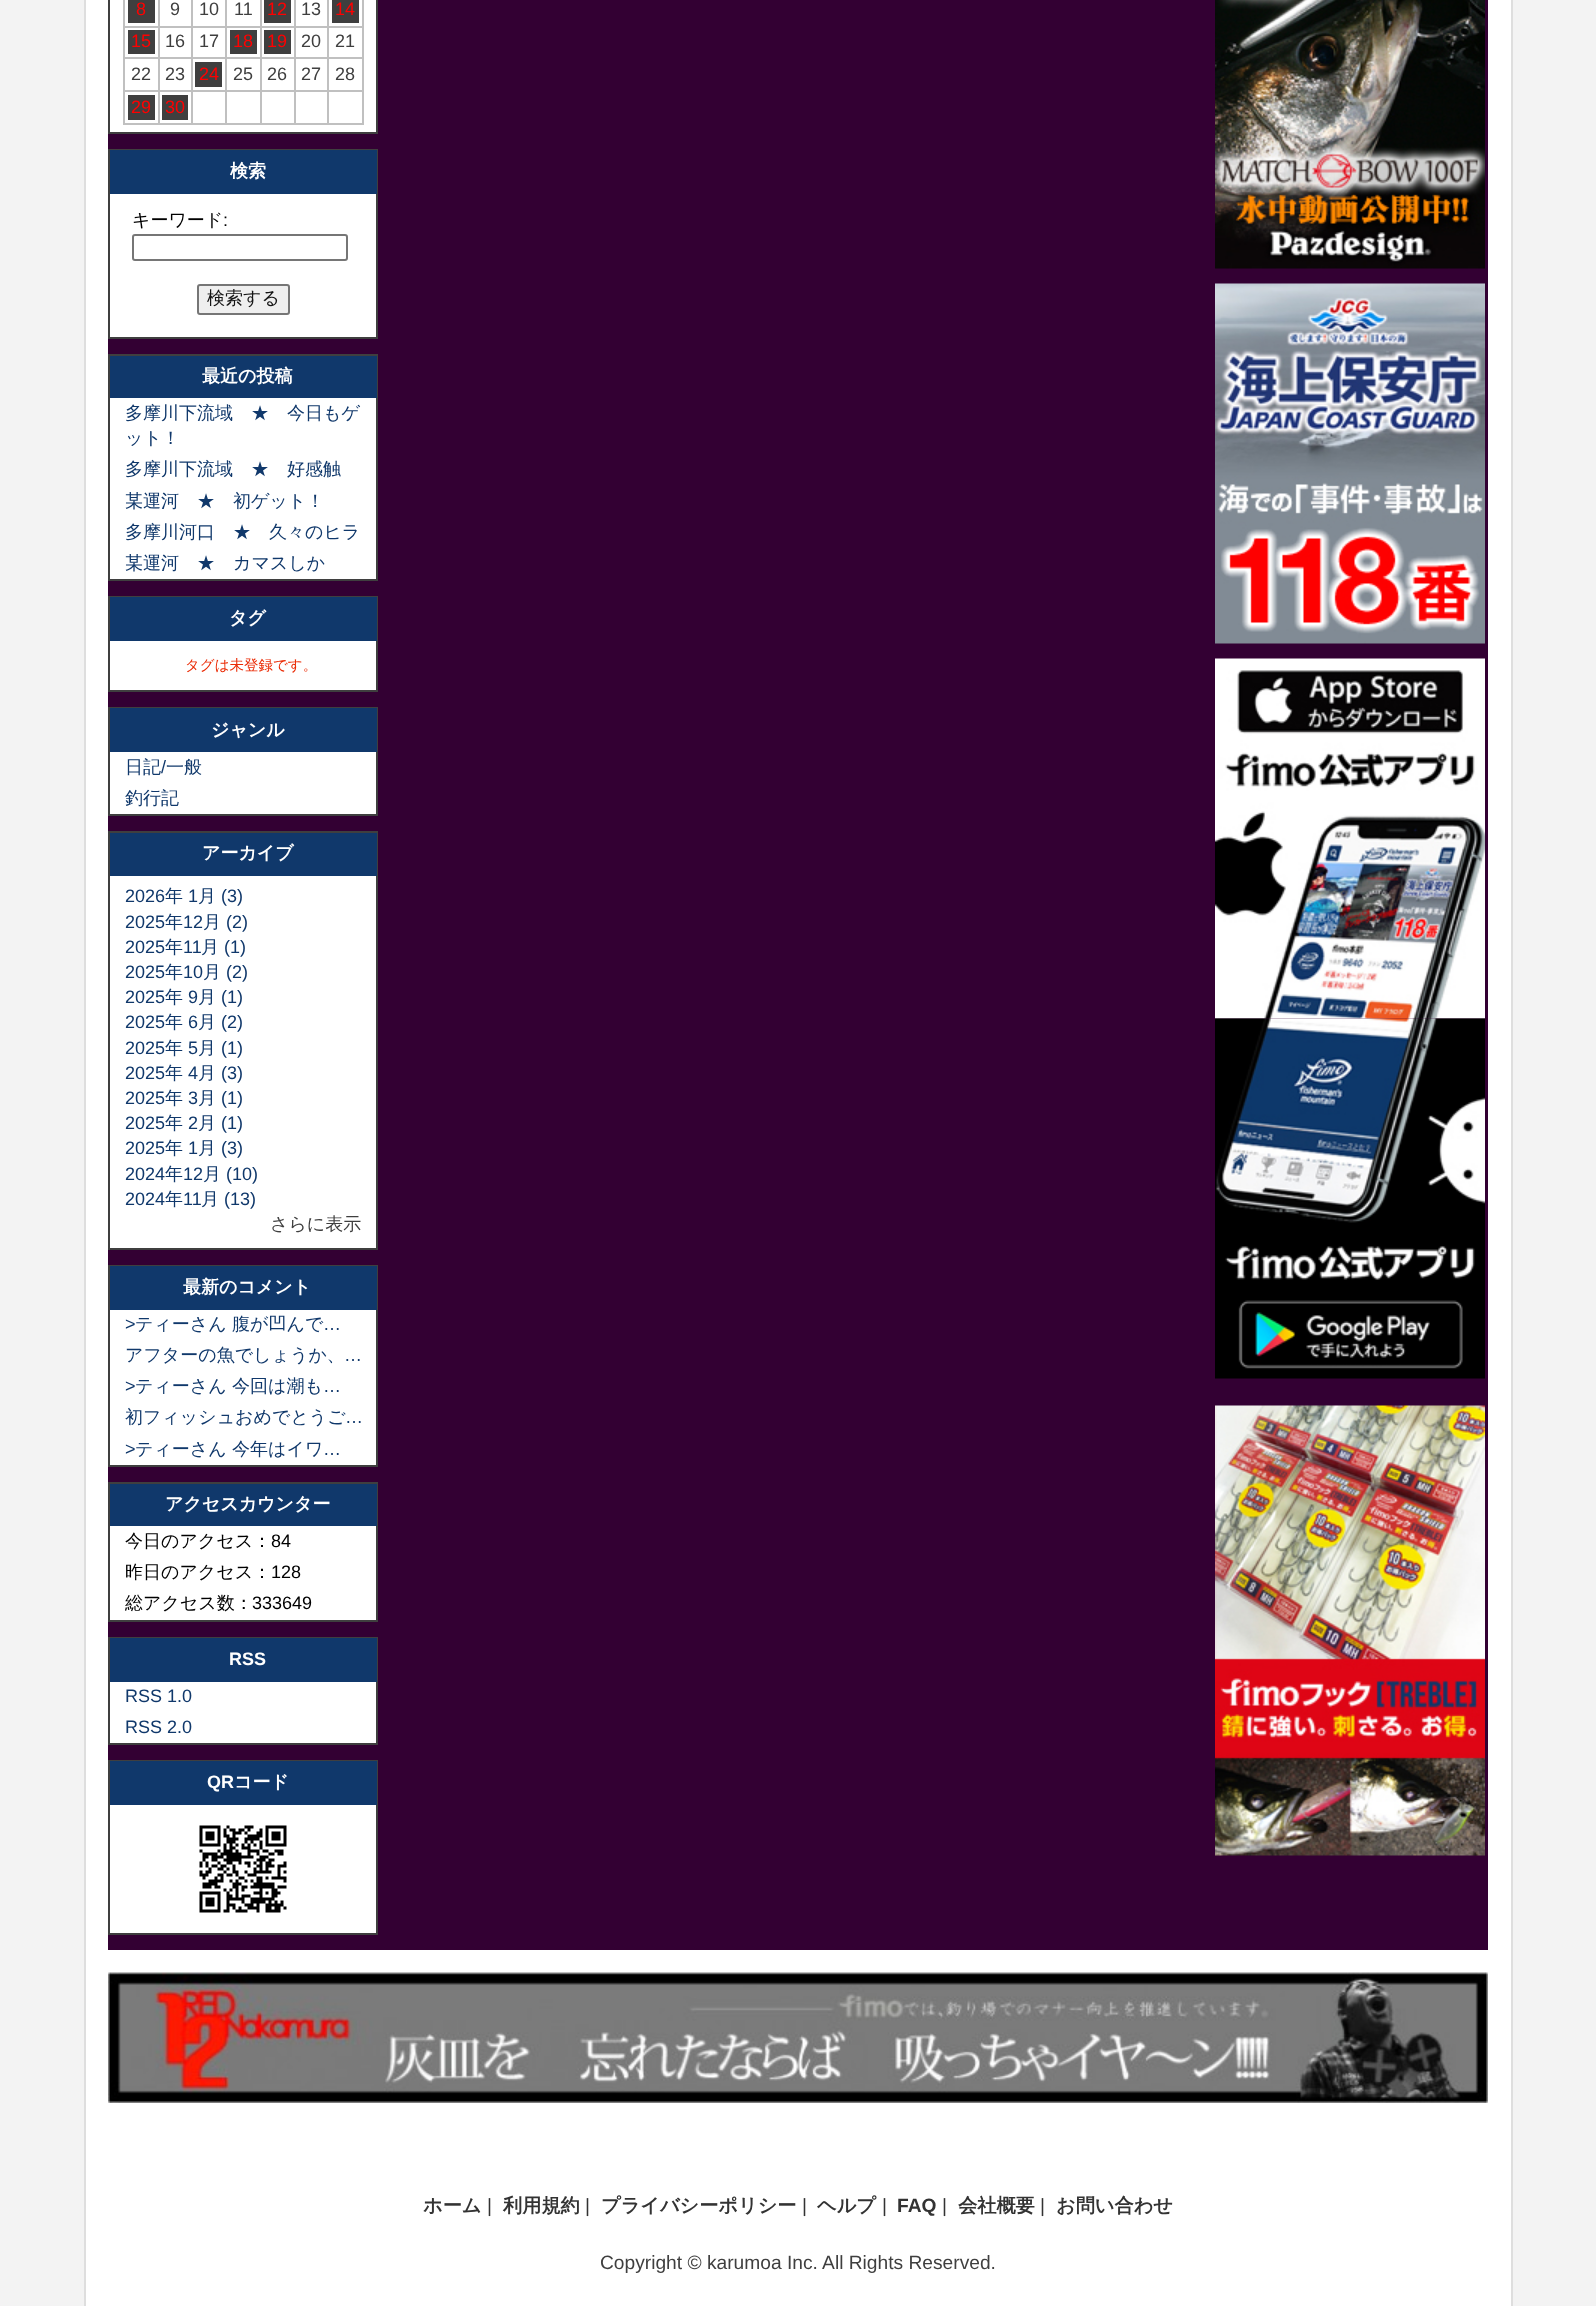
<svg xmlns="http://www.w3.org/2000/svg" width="1596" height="2306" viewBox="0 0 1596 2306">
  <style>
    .t1 { font: 18px Liberation Sans; fill: #f00; }
    .t2 { font: 18px Liberation Sans; fill: #3f3f3f; }
    .t3 { font: bold 18px WenQuanYi Zen Hei; fill: #fff; }
    .t4 { font: 500 18px WenQuanYi Zen Hei; fill: #000; }
    .t5 { font: 18px Liberation Sans; fill: #000; }
    .t6 { font: 500 18px WenQuanYi Zen Hei; fill: #141414; }
    .t7 { font: 500 18px WenQuanYi Zen Hei; fill: #10386b; }
    .t8 { font: 500 14.5px WenQuanYi Zen Hei; fill: #ea2a04; }
    .t9 { font: 18px Liberation Sans; fill: #10386b; }
    .t10 { font: 500 18px WenQuanYi Zen Hei; fill: #3f3f3f; }
    .t11 { font: bold 18px Liberation Sans; fill: #fff; }
    .t12 { font: bold 19.2px WenQuanYi Zen Hei; fill: #333; }
    .t13 { font: 19.2px Liberation Sans; fill: #333; }
    .t14 { font: bold 19.2px Liberation Sans; fill: #333; }
    .t15 { font: 19.2px Liberation Sans; fill: #3f3f3f; }
  </style>
  <rect width="100%" height="100%" fill="#f3f3f3"/>
  <rect x="86" y="0" width="1425" height="2306" fill="#fff"/>
  <rect x="1511" y="0" width="2" height="2306" fill="#dedede"/>
  <rect x="84" y="0" width="2" height="2306" fill="#dedede"/>
  <rect x="108" y="0" width="1380" height="1950" fill="#303"/>
  <rect x="109" y="-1" width="268" height="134" fill="#fff" stroke="#3f3f3f" stroke-width="2"/>
  <rect x="362" y="0" width="2" height="125" fill="#c0c0c0"/>
  <rect x="123" y="123" width="240" height="2" fill="#c0c0c0"/>
  <rect x="123" y="0" width="2" height="125" fill="#c0c0c0"/>
  <rect x="128" y="0" width="27" height="23" fill="#3f3f3f"/>
  <text x="136" y="15" class="t1">8</text>
  <rect x="327" y="26" width="36" height="2" fill="#c0c0c0"/>
  <rect x="327" y="57" width="36" height="2" fill="#c0c0c0"/>
  <rect x="327" y="90" width="36" height="2" fill="#c0c0c0"/>
  <rect x="327" y="90" width="2" height="35" fill="#c0c0c0"/>
  <rect x="294" y="90" width="35" height="2" fill="#c0c0c0"/>
  <rect x="327" y="57" width="2" height="35" fill="#c0c0c0"/>
  <rect x="294" y="57" width="35" height="2" fill="#c0c0c0"/>
  <rect x="327" y="26" width="2" height="33" fill="#c0c0c0"/>
  <rect x="294" y="26" width="35" height="2" fill="#c0c0c0"/>
  <rect x="294" y="90" width="2" height="35" fill="#c0c0c0"/>
  <rect x="260" y="90" width="36" height="2" fill="#c0c0c0"/>
  <rect x="294" y="57" width="2" height="35" fill="#c0c0c0"/>
  <rect x="260" y="57" width="36" height="2" fill="#c0c0c0"/>
  <rect x="294" y="26" width="2" height="33" fill="#c0c0c0"/>
  <rect x="260" y="26" width="36" height="2" fill="#c0c0c0"/>
  <rect x="260" y="90" width="2" height="35" fill="#c0c0c0"/>
  <rect x="225" y="90" width="36" height="2" fill="#c0c0c0"/>
  <rect x="260" y="57" width="2" height="35" fill="#c0c0c0"/>
  <rect x="225" y="57" width="36" height="2" fill="#c0c0c0"/>
  <rect x="260" y="26" width="2" height="33" fill="#c0c0c0"/>
  <rect x="225" y="26" width="36" height="2" fill="#c0c0c0"/>
  <rect x="225" y="90" width="2" height="35" fill="#c0c0c0"/>
  <rect x="191" y="90" width="36" height="2" fill="#c0c0c0"/>
  <rect x="225" y="57" width="2" height="35" fill="#c0c0c0"/>
  <rect x="191" y="57" width="36" height="2" fill="#c0c0c0"/>
  <rect x="225" y="26" width="2" height="33" fill="#c0c0c0"/>
  <rect x="191" y="26" width="36" height="2" fill="#c0c0c0"/>
  <rect x="191" y="90" width="2" height="35" fill="#c0c0c0"/>
  <rect x="158" y="90" width="34" height="2" fill="#c0c0c0"/>
  <rect x="191" y="57" width="2" height="35" fill="#c0c0c0"/>
  <rect x="158" y="57" width="34" height="2" fill="#c0c0c0"/>
  <rect x="191" y="26" width="2" height="33" fill="#c0c0c0"/>
  <rect x="158" y="26" width="34" height="2" fill="#c0c0c0"/>
  <rect x="158" y="90" width="2" height="35" fill="#c0c0c0"/>
  <rect x="123" y="90" width="36" height="2" fill="#c0c0c0"/>
  <rect x="158" y="57" width="2" height="35" fill="#c0c0c0"/>
  <rect x="123" y="57" width="36" height="2" fill="#c0c0c0"/>
  <rect x="158" y="26" width="2" height="33" fill="#c0c0c0"/>
  <rect x="123" y="26" width="36" height="2" fill="#c0c0c0"/>
  <rect x="158" y="0" width="2" height="27" fill="#c0c0c0"/>
  <text x="170" y="15" class="t2">9</text>
  <rect x="191" y="0" width="2" height="27" fill="#c0c0c0"/>
  <text x="199" y="15" class="t2">10</text>
  <rect x="225" y="0" width="2" height="27" fill="#c0c0c0"/>
  <text x="234" y="15" class="t2">11</text>
  <rect x="260" y="0" width="2" height="27" fill="#c0c0c0"/>
  <rect x="264" y="0" width="27" height="23" fill="#3f3f3f"/>
  <text x="267" y="15" class="t1">12</text>
  <rect x="294" y="0" width="2" height="27" fill="#c0c0c0"/>
  <text x="301" y="15" class="t2">13</text>
  <rect x="327" y="0" width="2" height="27" fill="#c0c0c0"/>
  <rect x="332" y="0" width="27" height="23" fill="#3f3f3f"/>
  <text x="335" y="15" class="t1">14</text>
  <rect x="128" y="30" width="27" height="24" fill="#3f3f3f"/>
  <text x="131" y="47" class="t1">15</text>
  <text x="165" y="47" class="t2">16</text>
  <text x="199" y="47" class="t2">17</text>
  <rect x="230" y="30" width="27" height="24" fill="#3f3f3f"/>
  <text x="233" y="47" class="t1">18</text>
  <rect x="264" y="30" width="27" height="24" fill="#3f3f3f"/>
  <text x="267" y="47" class="t1">19</text>
  <text x="301" y="47" class="t2">20</text>
  <text x="335" y="47" class="t2">21</text>
  <text x="131" y="80" class="t2">22</text>
  <text x="165" y="80" class="t2">23</text>
  <rect x="195" y="62" width="27" height="25" fill="#3f3f3f"/>
  <text x="199" y="80" class="t1">24</text>
  <text x="233" y="80" class="t2">25</text>
  <text x="267" y="80" class="t2">26</text>
  <text x="301" y="80" class="t2">27</text>
  <text x="335" y="80" class="t2">28</text>
  <rect x="128" y="95" width="27" height="25" fill="#3f3f3f"/>
  <text x="131" y="113" class="t1">29</text>
  <rect x="162" y="95" width="26" height="25" fill="#3f3f3f"/>
  <text x="165" y="113" class="t1">30</text>
  <rect x="110" y="194" width="266" height="143" fill="#fff"/>
  <rect x="109" y="150" width="268" height="188" fill="none" stroke="#3f3f3f" stroke-width="2"/>
  <rect x="110" y="150" width="267" height="44" fill="#10386b"/>
  <text x="230" y="177" class="t3">検索</text>
  <text x="132" y="226" class="t4">キーワード</text>
  <text x="223" y="226" class="t5">:</text>
  <rect x="133" y="235" width="214" height="25" rx="2" fill="none" stroke="#767676" stroke-width="2"/>
  <rect x="198" y="285" width="91" height="29" rx="2" fill="#efefef" stroke="#767676" stroke-width="2"/>
  <text x="207" y="304" class="t6">検索する</text>
  <rect x="110" y="398" width="266" height="181" fill="#fff"/>
  <rect x="109" y="355" width="268" height="225" fill="none" stroke="#3f3f3f" stroke-width="2"/>
  <rect x="110" y="356" width="267" height="42" fill="#10386b"/>
  <text x="202" y="382" class="t3">最近の投稿</text>
  <text x="125" y="419" class="t7">多摩川下流域　★　今日もゲ</text>
  <text x="125" y="444" class="t7">ット！</text>
  <text x="125" y="475" class="t7">多摩川下流域　★　好感触</text>
  <text x="125" y="507" class="t7">某運河　★　初ゲット！</text>
  <text x="125" y="538" class="t7">多摩川河口　★　久々のヒラ</text>
  <text x="125" y="569" class="t7">某運河　★　カマスしか</text>
  <rect x="110" y="641" width="266" height="49" fill="#fff"/>
  <rect x="109" y="597" width="268" height="94" fill="none" stroke="#3f3f3f" stroke-width="2"/>
  <rect x="110" y="597" width="267" height="44" fill="#10386b"/>
  <text x="229" y="624" class="t3">タグ</text>
  <text x="185" y="670" class="t8">タグは未登録です。</text>
  <rect x="110" y="752" width="266" height="62" fill="#fff"/>
  <rect x="109" y="708" width="268" height="107" fill="none" stroke="#3f3f3f" stroke-width="2"/>
  <rect x="110" y="708" width="267" height="44" fill="#10386b"/>
  <text x="211" y="736" class="t3">ジャンル</text>
  <text x="125" y="773" class="t7">日記</text>
  <text x="161" y="773" class="t9">/</text>
  <text x="166" y="773" class="t7">一般</text>
  <text x="125" y="804" class="t7">釣行記</text>
  <rect x="110" y="876" width="266" height="372" fill="#fff"/>
  <rect x="109" y="832" width="268" height="417" fill="none" stroke="#3f3f3f" stroke-width="2"/>
  <rect x="110" y="833" width="267" height="43" fill="#10386b"/>
  <text x="202" y="859" class="t3">アーカイブ</text>
  <text x="125" y="902" class="t9">2026</text>
  <text x="165" y="902" class="t7">年</text>
  <text x="188" y="902" class="t9">1</text>
  <text x="198" y="902" class="t7">月</text>
  <text x="221" y="902" class="t9">(3)</text>
  <text x="125" y="928" class="t9">2025</text>
  <text x="165" y="928" class="t7">年</text>
  <text x="183" y="928" class="t9">12</text>
  <text x="203" y="928" class="t7">月</text>
  <text x="226" y="928" class="t9">(2)</text>
  <text x="125" y="953" class="t9">2025</text>
  <text x="165" y="953" class="t7">年</text>
  <text x="183" y="953" class="t9">11</text>
  <text x="201" y="953" class="t7">月</text>
  <text x="224" y="953" class="t9">(1)</text>
  <text x="125" y="978" class="t9">2025</text>
  <text x="165" y="978" class="t7">年</text>
  <text x="183" y="978" class="t9">10</text>
  <text x="203" y="978" class="t7">月</text>
  <text x="226" y="978" class="t9">(2)</text>
  <text x="125" y="1003" class="t9">2025</text>
  <text x="165" y="1003" class="t7">年</text>
  <text x="188" y="1003" class="t9">9</text>
  <text x="198" y="1003" class="t7">月</text>
  <text x="221" y="1003" class="t9">(1)</text>
  <text x="125" y="1028" class="t9">2025</text>
  <text x="165" y="1028" class="t7">年</text>
  <text x="188" y="1028" class="t9">6</text>
  <text x="198" y="1028" class="t7">月</text>
  <text x="221" y="1028" class="t9">(2)</text>
  <text x="125" y="1054" class="t9">2025</text>
  <text x="165" y="1054" class="t7">年</text>
  <text x="188" y="1054" class="t9">5</text>
  <text x="198" y="1054" class="t7">月</text>
  <text x="221" y="1054" class="t9">(1)</text>
  <text x="125" y="1079" class="t9">2025</text>
  <text x="165" y="1079" class="t7">年</text>
  <text x="188" y="1079" class="t9">4</text>
  <text x="198" y="1079" class="t7">月</text>
  <text x="221" y="1079" class="t9">(3)</text>
  <text x="125" y="1104" class="t9">2025</text>
  <text x="165" y="1104" class="t7">年</text>
  <text x="188" y="1104" class="t9">3</text>
  <text x="198" y="1104" class="t7">月</text>
  <text x="221" y="1104" class="t9">(1)</text>
  <text x="125" y="1129" class="t9">2025</text>
  <text x="165" y="1129" class="t7">年</text>
  <text x="188" y="1129" class="t9">2</text>
  <text x="198" y="1129" class="t7">月</text>
  <text x="221" y="1129" class="t9">(1)</text>
  <text x="125" y="1154" class="t9">2025</text>
  <text x="165" y="1154" class="t7">年</text>
  <text x="188" y="1154" class="t9">1</text>
  <text x="198" y="1154" class="t7">月</text>
  <text x="221" y="1154" class="t9">(3)</text>
  <text x="125" y="1180" class="t9">2024</text>
  <text x="165" y="1180" class="t7">年</text>
  <text x="183" y="1180" class="t9">12</text>
  <text x="203" y="1180" class="t7">月</text>
  <text x="226" y="1180" class="t9">(10)</text>
  <text x="125" y="1205" class="t9">2024</text>
  <text x="165" y="1205" class="t7">年</text>
  <text x="183" y="1205" class="t9">11</text>
  <text x="201" y="1205" class="t7">月</text>
  <text x="224" y="1205" class="t9">(13)</text>
  <text x="270" y="1230" class="t10">さらに表示</text>
  <rect x="110" y="1310" width="266" height="155" fill="#fff"/>
  <rect x="109" y="1266" width="268" height="200" fill="none" stroke="#3f3f3f" stroke-width="2"/>
  <rect x="110" y="1266" width="267" height="44" fill="#10386b"/>
  <text x="183" y="1293" class="t3">最新のコメント</text>
  <text x="125" y="1330" class="t9">&gt;</text>
  <text x="135" y="1330" class="t7">ティーさん 腹が凹んで</text>
  <text x="323" y="1330" class="t9">…</text>
  <text x="125" y="1361" class="t7">アフターの魚でしょうか、</text>
  <text x="344" y="1361" class="t9">…</text>
  <text x="125" y="1392" class="t9">&gt;</text>
  <text x="135" y="1392" class="t7">ティーさん 今回は潮も</text>
  <text x="323" y="1392" class="t9">…</text>
  <text x="125" y="1423" class="t7">初フィッシュおめでとうご</text>
  <text x="345" y="1423" class="t9">…</text>
  <text x="125" y="1455" class="t9">&gt;</text>
  <text x="135" y="1455" class="t7">ティーさん 今年はイワ</text>
  <text x="323" y="1455" class="t9">…</text>
  <rect x="110" y="1526" width="266" height="94" fill="#fff"/>
  <rect x="109" y="1483" width="268" height="138" fill="none" stroke="#3f3f3f" stroke-width="2"/>
  <rect x="110" y="1484" width="267" height="42" fill="#10386b"/>
  <text x="165" y="1510" class="t3">アクセスカウンター</text>
  <text x="125" y="1547" class="t4">今日のアクセス：</text>
  <text x="271" y="1547" class="t5">84</text>
  <text x="125" y="1578" class="t4">昨日のアクセス：</text>
  <text x="271" y="1578" class="t5">128</text>
  <text x="125" y="1609" class="t4">総アクセス数：</text>
  <text x="252" y="1609" class="t5">333649</text>
  <rect x="110" y="1682" width="266" height="61" fill="#fff"/>
  <rect x="109" y="1638" width="268" height="106" fill="none" stroke="#3f3f3f" stroke-width="2"/>
  <rect x="110" y="1638" width="267" height="44" fill="#10386b"/>
  <text x="229" y="1665" class="t11">RSS</text>
  <text x="125" y="1702" class="t9">RSS 1.0</text>
  <text x="125" y="1733" class="t9">RSS 2.0</text>
  <rect x="110" y="1805" width="266" height="128" fill="#fff"/>
  <rect x="109" y="1761" width="268" height="173" fill="none" stroke="#3f3f3f" stroke-width="2"/>
  <rect x="110" y="1761" width="267" height="44" fill="#10386b"/>
  <text x="207" y="1788" class="t11">QR</text>
  <text x="234" y="1788" class="t3">コード</text>
  <image x="199" y="1825" width="88" height="88" href="images/1.png"/>
  <image x="1215" y="0" width="270" height="269" href="images/2.png"/>
  <image x="1215" y="283" width="270" height="361" href="images/3.png"/>
  <image x="1215" y="658" width="270" height="361" href="images/4.png"/>
  <image x="1215" y="1018" width="270" height="361" href="images/5.png"/>
  <image x="1215" y="1405" width="270" height="451" href="images/6.png"/>
  <image x="108" y="1972" width="1380" height="131" href="images/7.png"/>
  <text x="423" y="2212" class="t12">ホーム</text>
  <text x="487" y="2212" class="t13">|</text>
  <text x="503" y="2212" class="t12">利用規約</text>
  <text x="585" y="2212" class="t13">|</text>
  <text x="601" y="2212" class="t12">プライバシーポリシー</text>
  <text x="802" y="2212" class="t13">|</text>
  <text x="817" y="2212" class="t12">ヘルプ</text>
  <text x="882" y="2212" class="t13">|</text>
  <text x="897" y="2212" class="t14">FAQ</text>
  <text x="942" y="2212" class="t13">|</text>
  <text x="958" y="2212" class="t12">会社概要</text>
  <text x="1040" y="2212" class="t13">|</text>
  <text x="1056" y="2212" class="t12">お問い合わせ</text>
  <text x="600" y="2269" class="t15">Copyright © karumoa Inc. All Rights Reserved.</text>
</svg>
